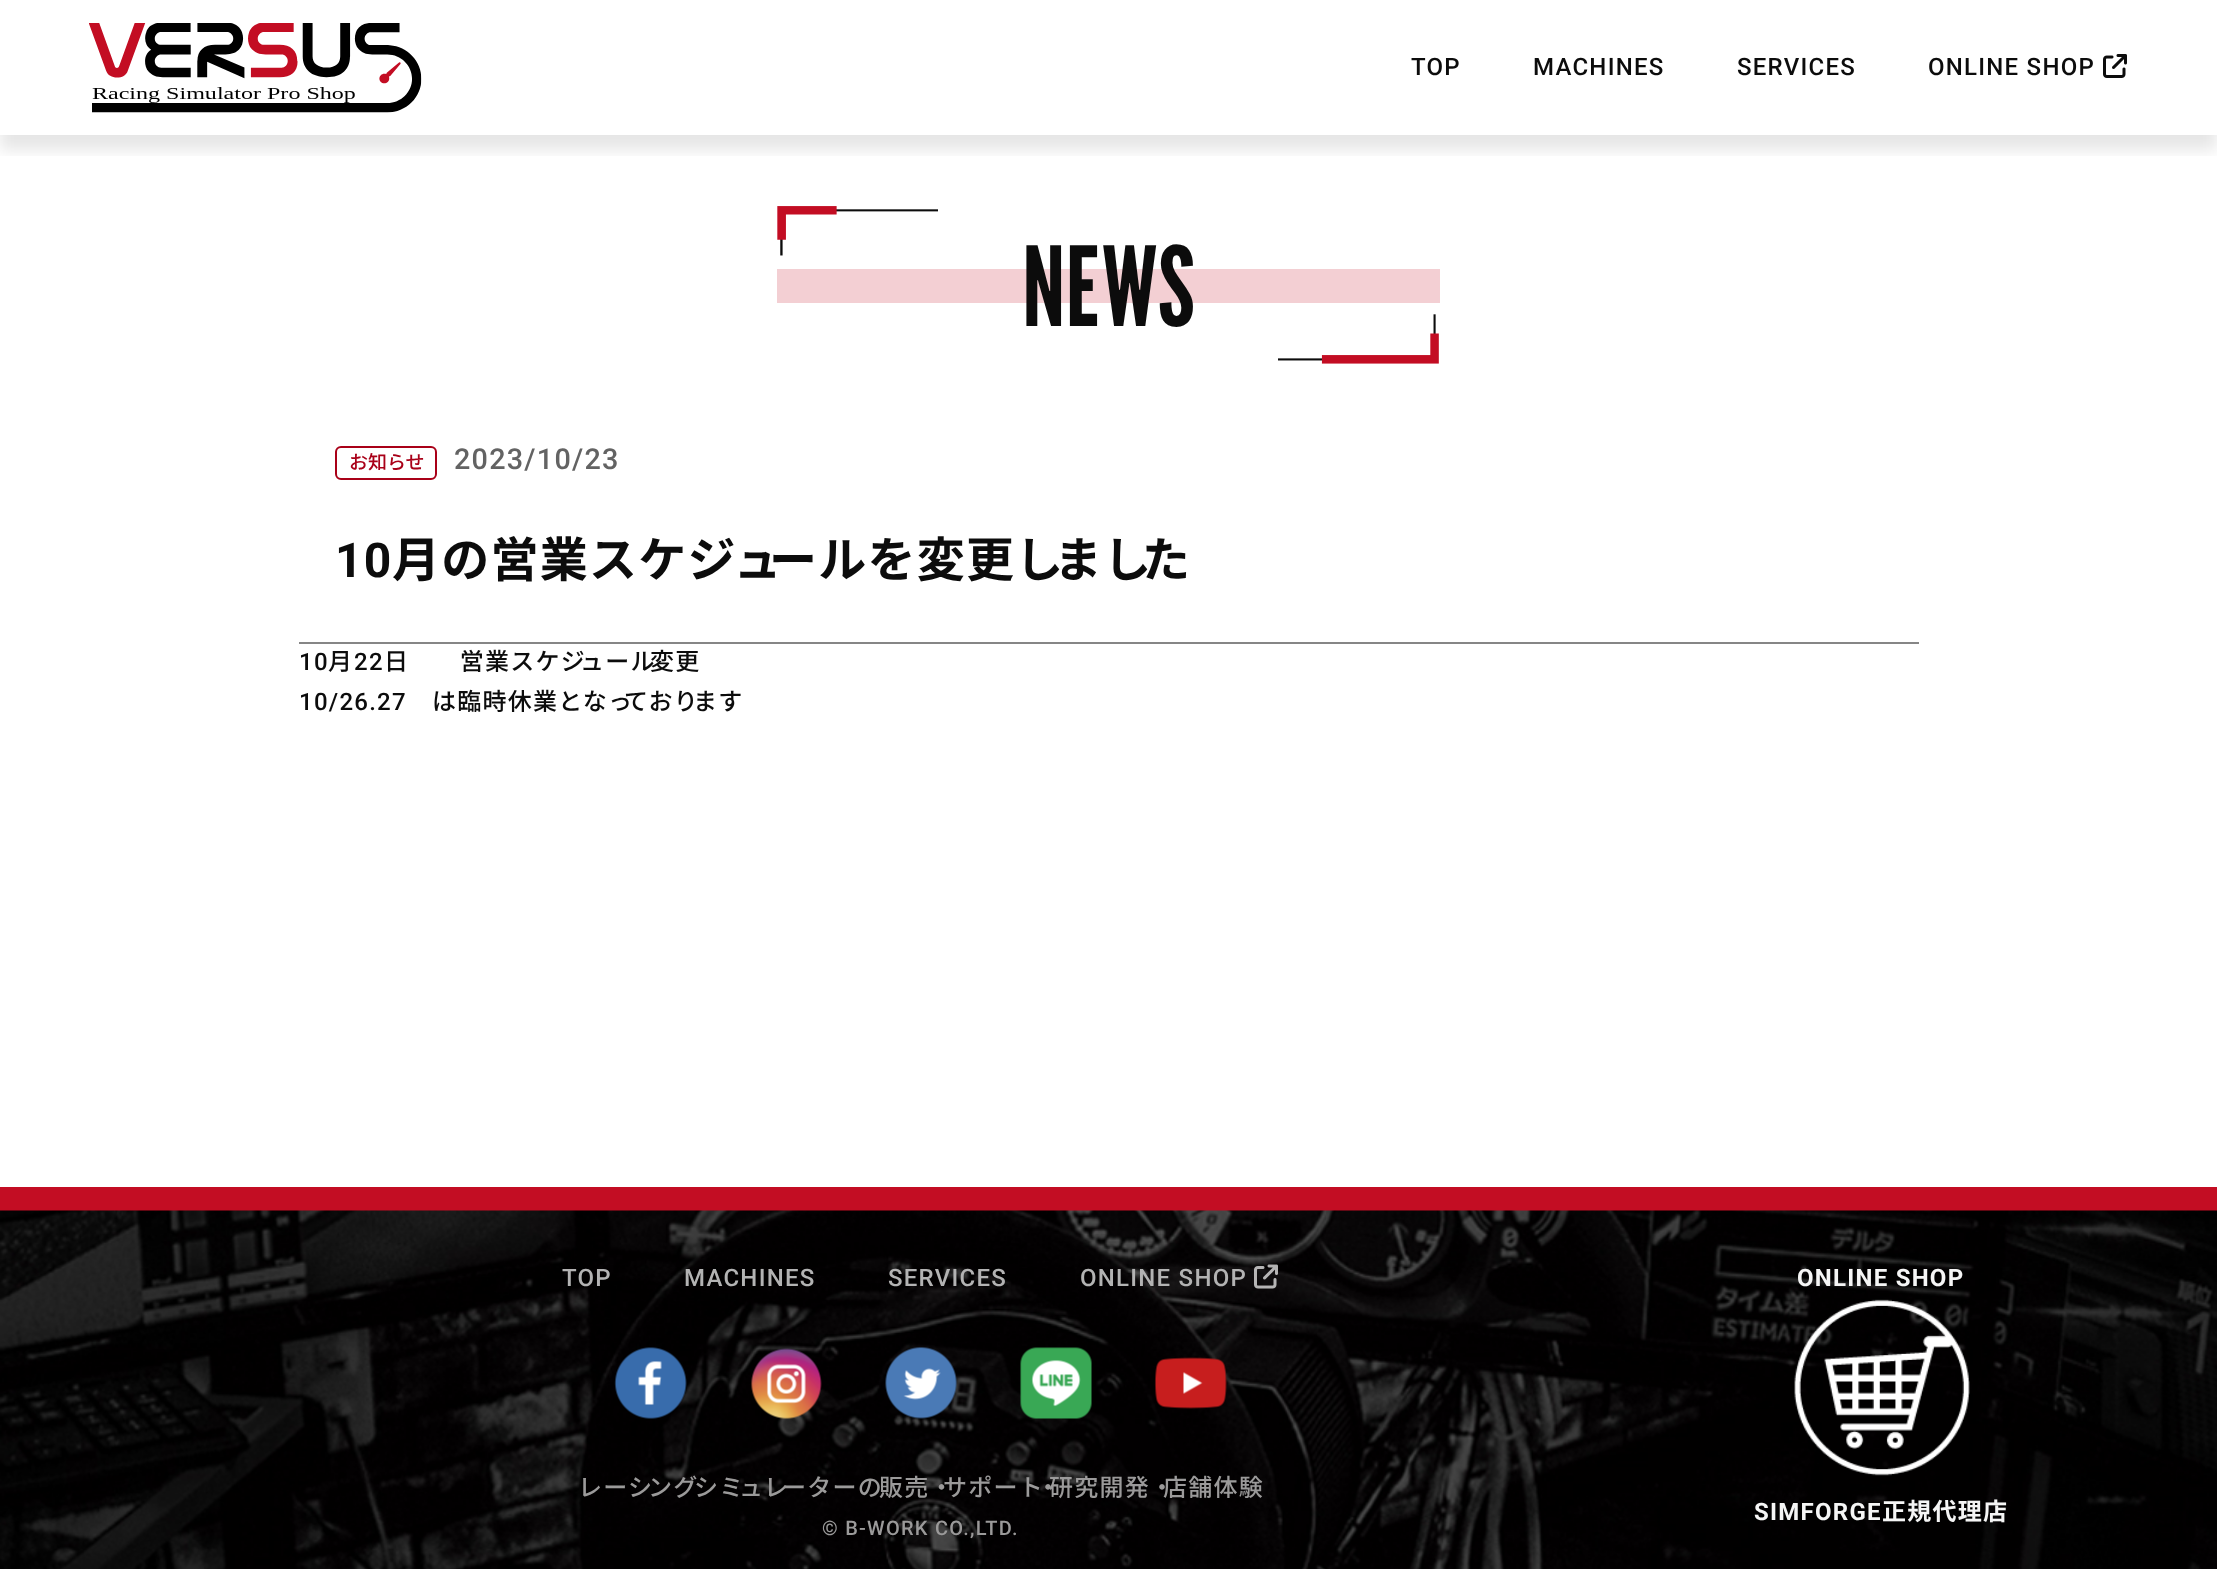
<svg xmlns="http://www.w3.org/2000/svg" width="2217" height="1569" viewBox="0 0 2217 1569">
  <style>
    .t1 { font: 500 24px Roboto; letter-spacing: 1.25px; fill: #0c0c0c; }
    .t2 { font: 110px League Gothic; fill: #0c0c0c; }
    .t3 { font: 500 19px Noto Sans JP; fill: #a90018; }
    .t4 { font: 500 28.75px Roboto; letter-spacing: 1.25px; fill: #636363; }
    .t5 { font: bold 48px Roboto; letter-spacing: 1.25px; fill: #0c0c0c; }
    .t6 { font: bold 48px Noto Sans JP; letter-spacing: 1.25px; fill: #0c0c0c; }
    .t7 { font: 500 24px Noto Sans JP; letter-spacing: 1.25px; fill: #0c0c0c; }
    .t8 { font: 500 24px Roboto; letter-spacing: 1.25px; fill: #b3b3b3; }
    .t9 { font: bold 24px Roboto; letter-spacing: 1.25px; fill: #f5f5f5; }
    .t10 { font: bold 24px Noto Sans JP; letter-spacing: 1.25px; fill: #f5f5f5; }
    .t11 { font: 500 24px Noto Sans JP; letter-spacing: 1.25px; fill: #9b9a9a; }
    .t12 { font: 500 20px Roboto; letter-spacing: 1.25px; fill: #9b9a9a; }
  </style>
  <defs>
    <clipPath id="clip1"><rect x="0" y="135" width="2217" height="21"/></clipPath>
  </defs>
  <rect width="100%" height="100%" fill="#fff"/>
  <g clip-path="url(#clip1)">
    <rect x="0" y="15" width="2217" height="135" fill="#0c0c0c1a" filter="blur(7.5px)"/>
  </g>
  <image x="89" y="23" width="333" height="90" href="images/1.png"/>
  <text x="1411" y="75" class="t1">TOP</text>
  <text x="1533" y="75" class="t1">MACHINES</text>
  <text x="1737" y="75" class="t1">SERVICES</text>
  <text x="1928" y="75" class="t1">ONLINE SHOP</text>
  <image x="2103" y="54" width="24" height="24" href="images/2.png"/>
  <rect x="777" y="269" width="663" height="34" fill="#f3cfd3"/>
  <text x="1022" y="326" class="t2">NEWS</text>
  <image x="777" y="206" width="662" height="158" href="images/3.png"/>
  <rect x="299" y="642" width="1620" height="2" fill="#868686"/>
  <rect x="336" y="447" width="100" height="32" rx="5" fill="none" stroke="#a90018" stroke-width="2"/>
  <text x="349" y="469" class="t3">お知らせ</text>
  <text x="454" y="469" class="t4">2023/10/23</text>
  <text x="335" y="577" class="t5">10</text>
  <text x="392" y="577" class="t6">月の営業スケジュ</text>
  <text x="769" y="577" class="t6">ールを変更し</text>
  <text x="1054" y="577" class="t6">まし</text>
  <text x="1142" y="577" class="t6">た</text>
  <text x="299" y="670" class="t1">10</text>
  <text x="328" y="670" class="t7">月</text>
  <text x="354" y="670" class="t1">22</text>
  <text x="384" y="670" class="t7">日　　営業スケジ</text>
  <text x="580" y="670" class="t7">ュール</text>
  <text x="650" y="670" class="t7">変更</text>
  <text x="299" y="710" class="t1">10/26.27</text>
  <text x="432" y="710" class="t7">は臨時休業となっ</text>
  <text x="624" y="710" class="t7">ており</text>
  <text x="693" y="710" class="t7">ます</text>
  <rect x="0" y="1187" width="2217" height="24" fill="#c30d23"/>
  <image x="0" y="1210" width="2217" height="359" href="images/4.png"/>
  <text x="562" y="1286" class="t8">TOP</text>
  <text x="684" y="1286" class="t8">MACHINES</text>
  <text x="888" y="1286" class="t8">SERVICES</text>
  <text x="1080" y="1286" class="t8">ONLINE SHOP</text>
  <image x="1254" y="1264" width="24" height="25" href="images/5.png"/>
  <text x="1797" y="1286" class="t9">ONLINE SHOP</text>
  <image x="1794" y="1299" width="176" height="177" href="images/6.png"/>
  <text x="1754" y="1520" class="t9">SIMFORGE</text>
  <text x="1882" y="1520" class="t10">正規代理店</text>
  <image x="614" y="1347" width="73" height="72" href="images/7.png"/>
  <image x="751" y="1348" width="71" height="71" href="images/8.png"/>
  <image x="885" y="1347" width="72" height="72" href="images/9.png"/>
  <image x="1020" y="1347" width="72" height="72" href="images/10.png"/>
  <image x="1154" y="1357" width="73" height="52" href="images/11.png"/>
  <text x="578" y="1496" class="t11">レーシ</text>
  <text x="648" y="1496" class="t11">ング</text>
  <text x="694" y="1496" class="t11">シミ</text>
  <text x="739" y="1496" class="t11">ュレ</text>
  <text x="782" y="1496" class="t11">ーターの</text>
  <text x="879" y="1496" class="t11">販売・</text>
  <text x="943" y="1496" class="t11">サポート</text>
  <text x="1036" y="1496" class="t11">・</text>
  <text x="1049" y="1496" class="t11">研究開発・</text>
  <text x="1163" y="1496" class="t11">店舗体験</text>
  <text x="822" y="1535" class="t12">© B-WORK CO.,LTD.</text>
</svg>
